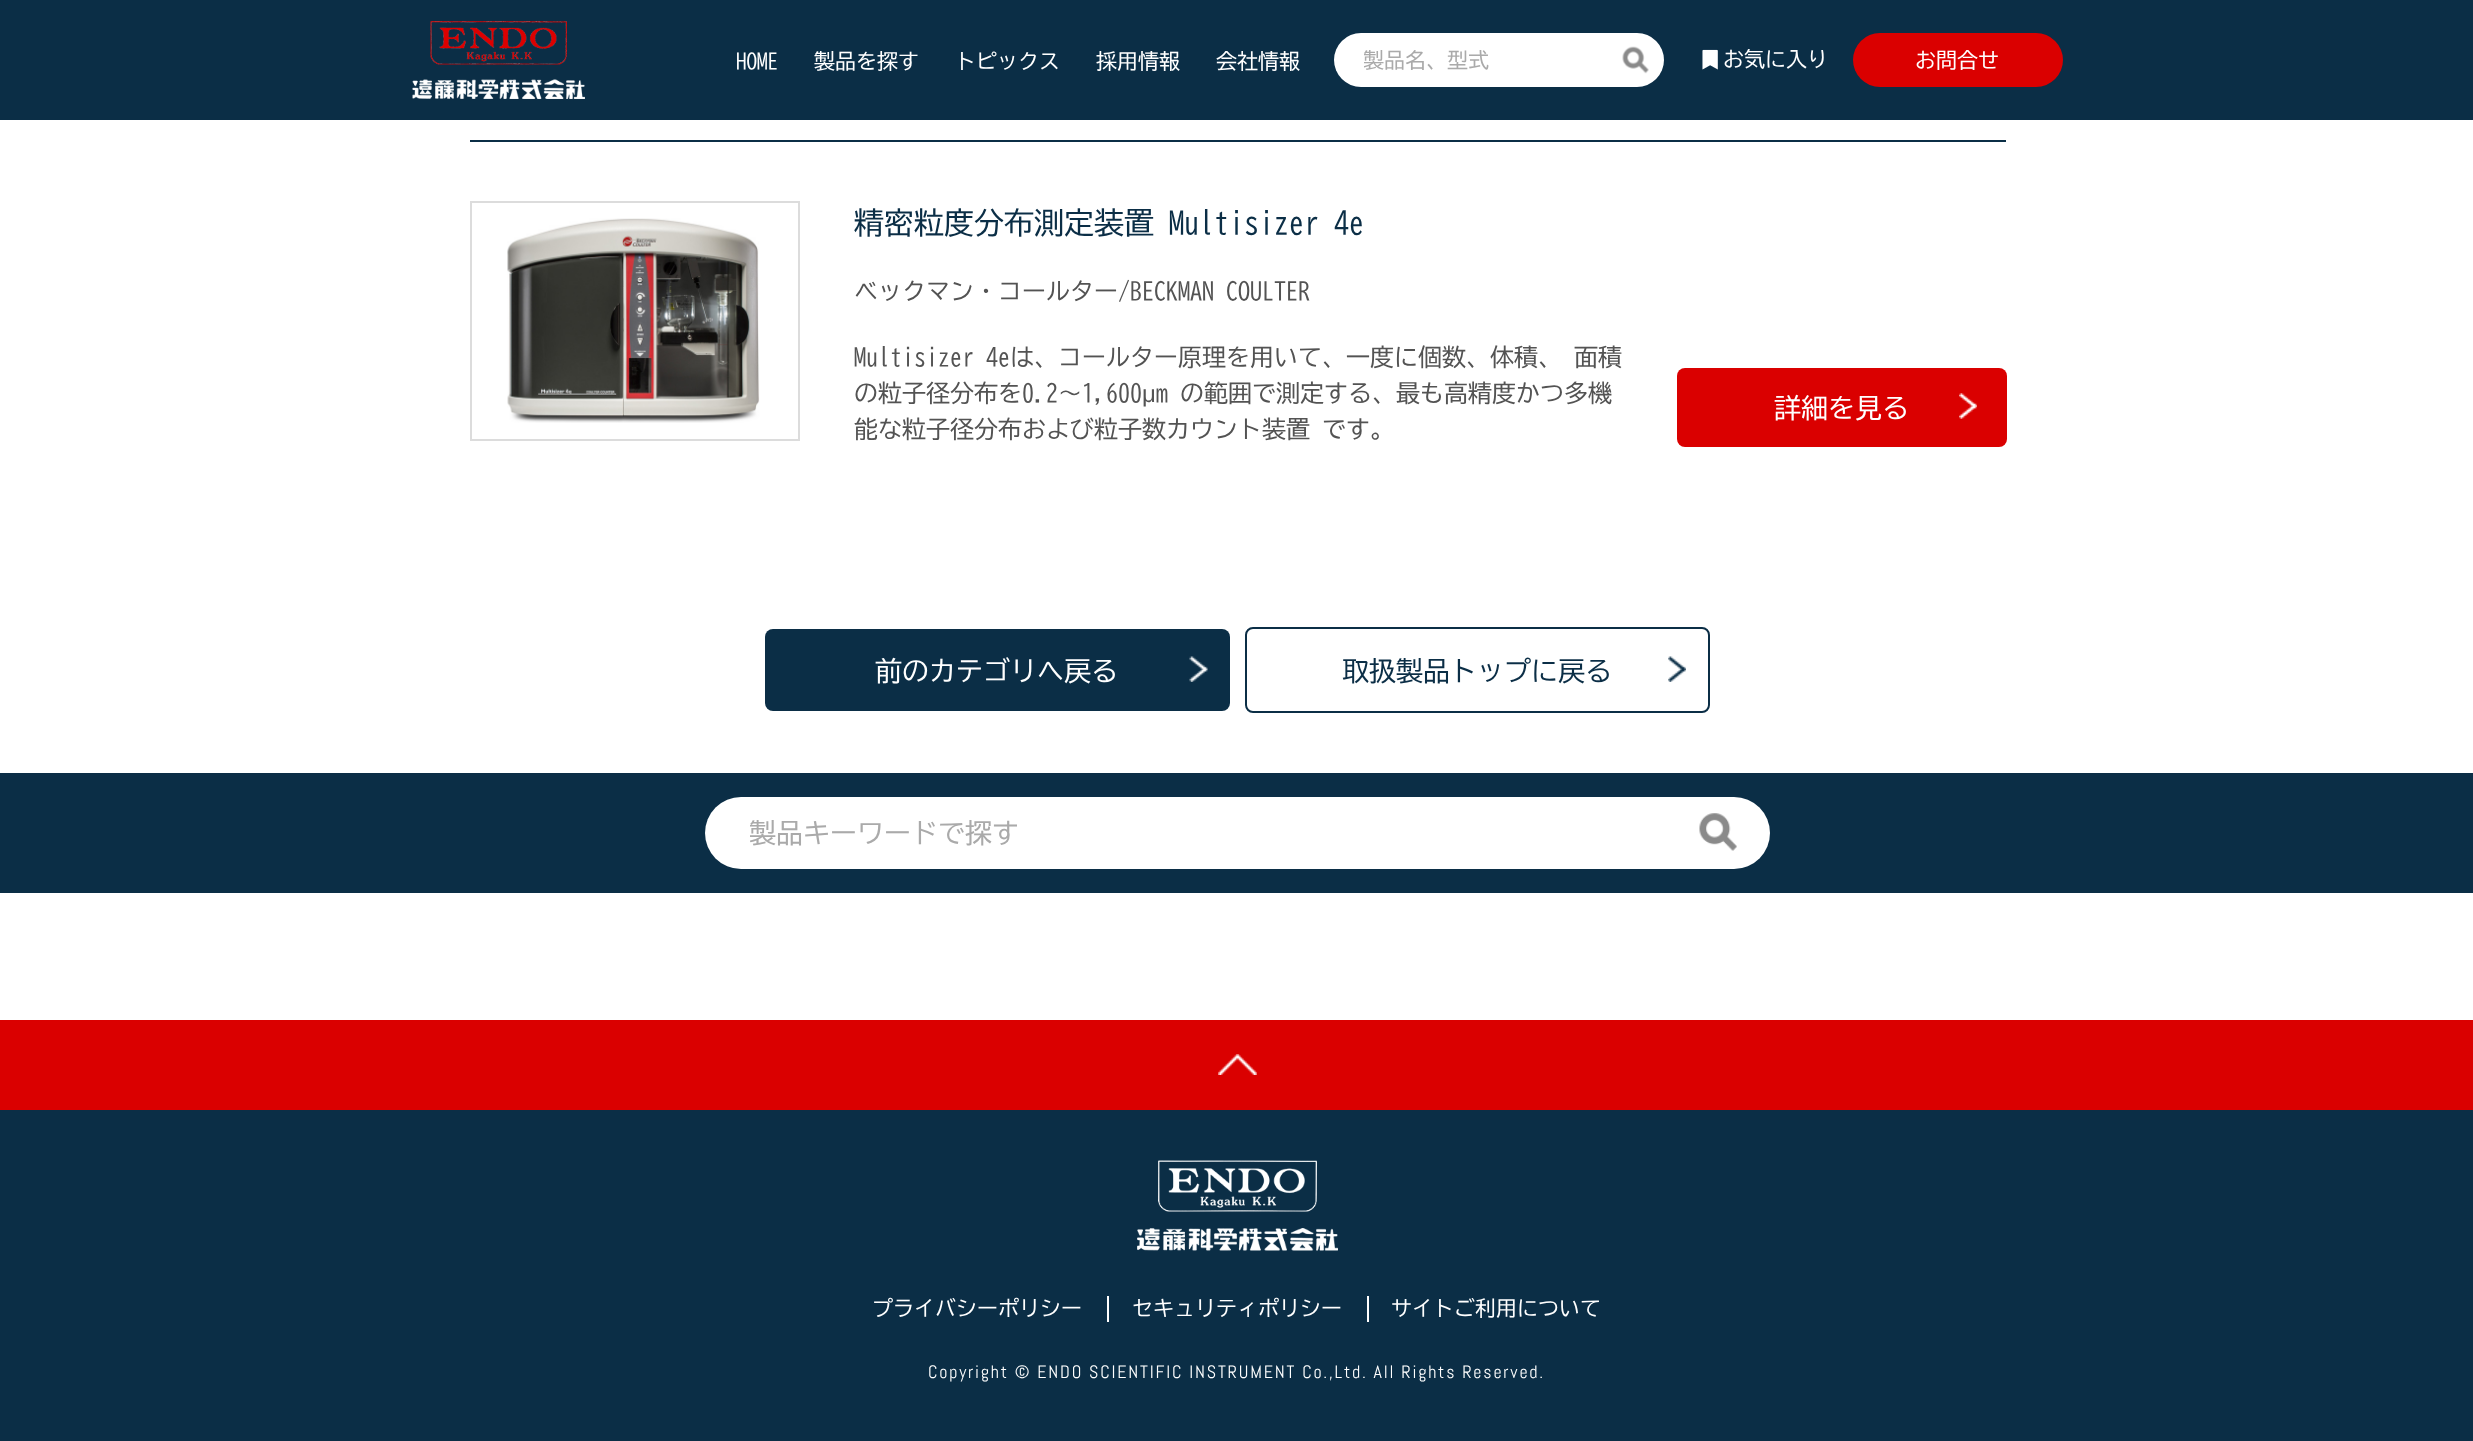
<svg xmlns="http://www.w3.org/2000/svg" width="2473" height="1441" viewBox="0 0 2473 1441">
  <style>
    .t1 { font: 21px BIZ UDGothic; fill: #fff; }
    .t2 { font: 21px BIZ UDGothic; fill: #aaa; }
    .t3 { font: 30px BIZ UDGothic; fill: #0b2e46; }
    .t4 { font: 24px BIZ UDGothic; fill: #535353; }
    .t5 { font: 24px Liberation Sans; fill: #535353; }
    .t6 { font: 27px BIZ UDGothic; fill: #fff; }
    .t7 { font: 27px BIZ UDGothic; fill: #0b2e46; }
    .t8 { font: 27px BIZ UDGothic; fill: #aaa; }
    .t9 { font: 18px Abel; letter-spacing: 1.8px; fill: #fff; }
  </style>
  <defs>
    <clipPath id="clip1"><rect x="1364" y="50" width="250" height="21"/></clipPath>
    <clipPath id="clip2"><rect x="750" y="819" width="951" height="27"/></clipPath>
  </defs>
  <rect width="100%" height="100%" fill="#fff"/>
  <rect x="0" y="0" width="2473" height="120" fill="#0b2e46"/>
  <image x="412" y="21" width="173" height="78" href="images/1.png"/>
  <text x="736" y="69" class="t1">HOME</text>
  <text x="814" y="69" class="t1">製品を探す</text>
  <text x="955" y="69" class="t1">トピックス</text>
  <text x="1096" y="69" class="t1">採用情報</text>
  <text x="1216" y="69" class="t1">会社情報</text>
  <rect x="1334" y="33" width="330" height="54" rx="27" fill="#fff"/>
  <g clip-path="url(#clip1)">
    <text x="1363" y="68" class="t2">製品名、型式</text>
  </g>
  <image x="1622" y="46" width="27" height="28" href="images/2.png"/>
  <image x="1702" y="49" width="16" height="21" href="images/3.png"/>
  <text x="1723" y="67" class="t1">お気に入り</text>
  <rect x="1853" y="33" width="210" height="54" rx="27" fill="#da0000"/>
  <text x="1915" y="68" class="t1">お問合せ</text>
  <rect x="470" y="140" width="1536" height="2" fill="#0b2e46"/>
  <image x="507" y="218" width="253" height="205" href="images/4.png"/>
  <rect x="471" y="202" width="328" height="238" fill="none" stroke="#dcdcdc" stroke-width="2"/>
  <text x="854" y="234" class="t3">精密粒度分布測定装置 Multisizer 4e</text>
  <text x="854" y="300" class="t4">ベックマン・コールター/BECKMAN COULTER</text>
  <text x="854" y="366" class="t4">Multisizer 4eは、コールター原理を用いて、一度に個数、体積、 面積</text>
  <text x="854" y="402" class="t4">の粒子径分布を0.2～1,600</text>
  <text x="1142" y="402" class="t5">μ</text>
  <text x="1156" y="402" class="t4">m の範囲で測定する、最も高精度かつ多機</text>
  <text x="854" y="438" class="t4">能な粒子径分布および粒子数カウント装置 です。</text>
  <rect x="1677" y="368" width="330" height="79" rx="8" fill="#da0000"/>
  <text x="1774" y="418" class="t6">詳細を見る</text>
  <image x="1959" y="393" width="18" height="26" href="images/5.png"/>
  <rect x="765" y="629" width="465" height="82" rx="8" fill="#0b2e46"/>
  <image x="1189" y="656" width="19" height="26" href="images/6.png"/>
  <text x="875" y="681" class="t6">前のカテゴリへ戻る</text>
  <image x="1668" y="656" width="18" height="26" href="images/7.png"/>
  <rect x="1246" y="628" width="463" height="84" rx="7" fill="none" stroke="#0b2e46" stroke-width="2"/>
  <text x="1342" y="681" class="t7">取扱製品トップに戻る</text>
  <rect x="0" y="773" width="2473" height="120" fill="#0b2e46"/>
  <rect x="705" y="797" width="1065" height="72" rx="36" fill="#fff"/>
  <g clip-path="url(#clip2)">
    <text x="749" y="843" class="t8">製品キーワードで探す</text>
  </g>
  <image x="1699" y="813" width="38" height="38" href="images/8.png"/>
  <rect x="0" y="1020" width="2473" height="90" fill="#da0000"/>
  <image x="1218" y="1054" width="39" height="21" href="images/9.png"/>
  <rect x="0" y="1110" width="2473" height="331" fill="#0b2e46"/>
  <image x="1137" y="1160" width="201" height="91" href="images/10.png"/>
  <text x="872" y="1316" class="t1">プライバシーポリシー</text>
  <rect x="1107" y="1296" width="2" height="26" fill="#fff"/>
  <text x="1132" y="1316" class="t1">セキュリティポリシー</text>
  <rect x="1367" y="1296" width="2" height="26" fill="#fff"/>
  <text x="1391" y="1316" class="t1">サイトご利用について</text>
  <text x="928" y="1378" class="t9">Copyright © ENDO SCIENTIFIC INSTRUMENT Co.,Ltd. All Rights Reserved.</text>
</svg>
